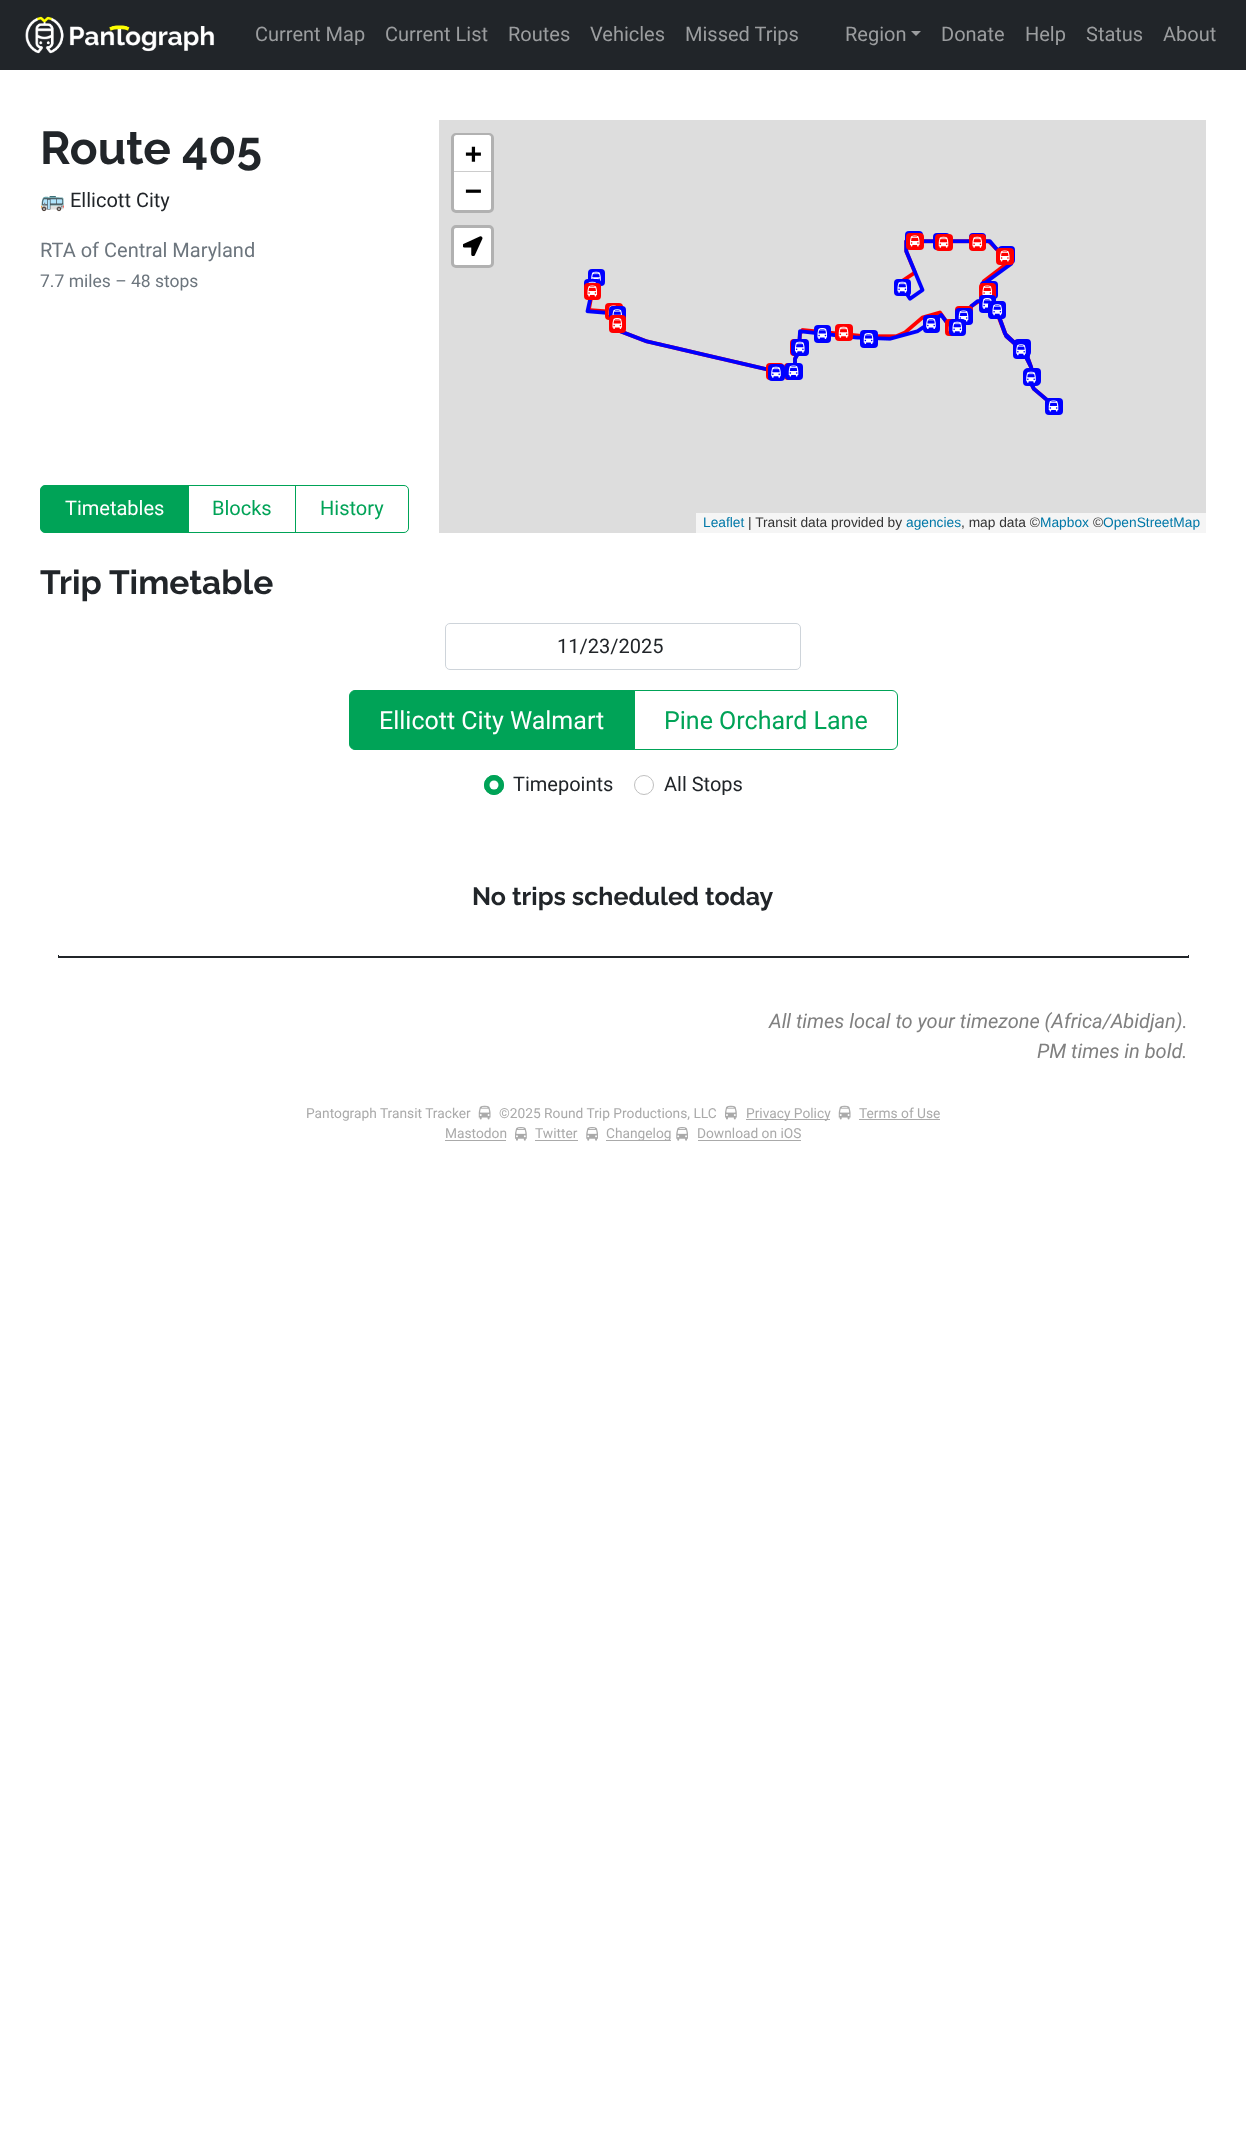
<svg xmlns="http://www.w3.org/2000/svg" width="1246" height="2130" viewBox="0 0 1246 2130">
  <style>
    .t1 { font: 20px Roboto; fill: #9b9d9f; }
    .t2 { font: 100 46px Raleway; fill: #212529; }
    .t3 { font: 20px Noto Color Emoji; fill: #212529; }
    .t4 { font: 20px Roboto; fill: #212529; }
    .t5 { font: 20px Roboto; fill: #6c757d; }
    .t6 { font: 17.5px Roboto; fill: #6c757d; }
    .t7 { font: 20px Roboto; fill: #fff; }
    .t8 { font: 20px Roboto; fill: #00a357; }
    .t9 { font: bold 28px DejaVu Sans Mono; fill: #000; }
    .t10 { font: 13.75px Liberation Sans; fill: #0078a8; }
    .t11 { font: 13.75px Liberation Sans; fill: #333; }
    .t12 { font: 100 33.5px Raleway; fill: #212529; }
    .t13 { font: 25px Roboto; fill: #fff; }
    .t14 { font: 25px Roboto; fill: #00a357; }
    .t15 { font: 100 25px Raleway; fill: #212529; }
    .t16 { font: italic 20px Roboto; fill: #808080; }
    .t17 { font: 13.75px Roboto; fill: #aaa; }
  </style>
  <rect width="100%" height="100%" fill="#fff"/>
  <rect x="0" y="0" width="1246" height="70" fill="#212529"/>
  <image x="25" y="16" width="190" height="38" href="images/1.png"/>
  <text x="255" y="41" class="t1">Current Map</text>
  <text x="385" y="41" class="t1">Current List</text>
  <text x="508" y="41" class="t1">Routes</text>
  <text x="590" y="41" class="t1">Vehicles</text>
  <text x="685" y="41" class="t1">Missed Trips</text>
  <text x="845" y="41" class="t1">Region</text>
  <path d="M911 31H921L916 36Z" fill="#9b9d9f"/>
  <text x="941" y="41" class="t1">Donate</text>
  <text x="1025" y="41" class="t1">Help</text>
  <text x="1086" y="41" class="t1">Status</text>
  <text x="1163" y="41" class="t1">About</text>
  <text x="40" y="164" class="t2">Route 405</text>
  <text x="40" y="207" class="t3">🚌</text>
  <text x="70" y="207" class="t4">Ellicott City</text>
  <text x="40" y="257" class="t5">RTA of Central Maryland</text>
  <text x="40" y="287" class="t6">7.7 miles – 48 stops</text>
  <path d="M45 485.5H188.5V532.5H45C42.5 532.5 40.5 530.5 40.5 528V490C40.5 487.5 42.5 485.5 45 485.5Z" fill="#00a357" stroke="#00a357"/>
  <text x="65" y="515" class="t7">Timetables</text>
  <rect x="188.5" y="485.5" width="107" height="47" fill="none" stroke="#00a357"/>
  <text x="212" y="515" class="t8">Blocks</text>
  <path d="M295.5 485.5H404C406.5 485.5 408.5 487.5 408.5 490V528C408.5 530.5 406.5 532.5 404 532.5H295.5Z" fill="none" stroke="#00a357"/>
  <text x="320" y="515" class="t8">History</text>
  <rect x="439" y="120" width="767" height="413" fill="#ddd"/>
  <rect x="452.5" y="134.5" width="40" height="77" rx="3.5" fill="none" stroke="#b1b1b1" stroke-width="3"/>
  <path d="M456.5 135H488.5C490 135 491 136 491 137.5V173H454V137.5C454 136 455 135 456.5 135Z" fill="#fff"/>
  <rect x="454" y="171" width="37" height="1" fill="#ccc"/>
  <text x="465" y="163" class="t9">+</text>
  <path d="M454 173H491V207.5C491 209 490 210 488.5 210H456.5C455 210 454 209 454 207.5Z" fill="#fff"/>
  <text x="465" y="200" class="t9">−</text>
  <rect x="452.5" y="226.5" width="40" height="40" rx="3.5" fill="none" stroke="#b1b1b1" stroke-width="3"/>
  <rect x="454" y="228" width="37" height="37" rx="2.5" fill="#fff"/>
  <image x="463" y="236" width="20" height="20" href="images/2.png"/>
  <rect x="696" y="513" width="510" height="20" fill="#f5f5f5"/>
  <text x="703" y="527" class="t10">Leaflet</text>
  <text x="748" y="527" class="t11">| Transit data provided by</text>
  <text x="906" y="527" class="t10">agencies</text>
  <text x="961" y="527" class="t11">, map data ©</text>
  <text x="1040" y="527" class="t10">Mapbox</text>
  <text x="1093" y="527" class="t11">©</text>
  <text x="1103" y="527" class="t10">OpenStreetMap</text>
  <image x="585" y="239" width="464" height="163" href="images/24.png"/>
  <rect x="905" y="231" width="18" height="18" rx="4" fill="#00f"/>
  <rect x="906" y="233" width="18" height="17" rx="4" fill="#f00"/>
  <image x="910" y="235" width="10" height="12" href="images/3.png"/>
  <rect x="933" y="233" width="17" height="17" rx="4" fill="#00f"/>
  <rect x="969" y="233" width="17" height="17" rx="4" fill="#00f"/>
  <rect x="935" y="234" width="18" height="17" rx="4" fill="#f00"/>
  <image x="938" y="236" width="11" height="12" href="images/4.png"/>
  <rect x="969" y="234" width="17" height="17" rx="4" fill="#f00"/>
  <image x="972" y="236" width="11" height="12" href="images/5.png"/>
  <rect x="998" y="246" width="17" height="18" rx="4" fill="#00f"/>
  <rect x="996" y="248" width="18" height="17" rx="4" fill="#f00"/>
  <image x="1000" y="250" width="10" height="12" href="images/3.png"/>
  <rect x="588" y="269" width="17" height="17" rx="4" fill="#00f"/>
  <image x="591" y="271" width="10" height="11" href="images/6.png"/>
  <rect x="584" y="279" width="17" height="17" rx="4" fill="#00f"/>
  <image x="588" y="281" width="8" height="2" href="images/7.png"/>
  <rect x="894" y="279" width="17" height="17" rx="4" fill="#00f"/>
  <image x="897" y="281" width="11" height="12" href="images/8.png"/>
  <rect x="980" y="281" width="18" height="18" rx="4" fill="#00f"/>
  <rect x="584" y="283" width="17" height="17" rx="4" fill="#f00"/>
  <image x="587" y="285" width="11" height="12" href="images/9.png"/>
  <rect x="979" y="283" width="17" height="17" rx="4" fill="#f00"/>
  <image x="982" y="285" width="11" height="10" href="images/10.png"/>
  <rect x="979" y="295" width="17" height="18" rx="4" fill="#00f"/>
  <image x="982" y="298" width="10" height="11" href="images/11.png"/>
  <rect x="988" y="301" width="17" height="18" rx="4" fill="#00f"/>
  <rect x="605" y="303" width="18" height="17" rx="4" fill="#f00"/>
  <image x="608" y="305" width="8" height="10" href="images/12.png"/>
  <rect x="989" y="301" width="17" height="18" rx="4" fill="#00f"/>
  <image x="992" y="304" width="11" height="12" href="images/13.png"/>
  <rect x="609" y="306" width="17" height="18" rx="4" fill="#00f"/>
  <image x="612" y="309" width="11" height="7" href="images/14.png"/>
  <rect x="955" y="306" width="18" height="18" rx="4" fill="#f00"/>
  <rect x="609" y="315" width="17" height="18" rx="4" fill="#f00"/>
  <image x="612" y="318" width="11" height="11" href="images/15.png"/>
  <rect x="923" y="315" width="17" height="18" rx="4" fill="#00f"/>
  <image x="926" y="318" width="10" height="11" href="images/16.png"/>
  <rect x="955" y="308" width="18" height="17" rx="4" fill="#00f"/>
  <image x="958" y="310" width="11" height="12" href="images/18.png"/>
  <rect x="945" y="319" width="18" height="17" rx="4" fill="#f00"/>
  <image x="948" y="322" width="2" height="11" href="images/17.png"/>
  <rect x="790" y="339" width="18" height="17" rx="4" fill="#f00"/>
  <rect x="814" y="325" width="17" height="18" rx="4" fill="#00f"/>
  <image x="817" y="328" width="11" height="11" href="images/19.png"/>
  <rect x="835" y="324" width="18" height="17" rx="4" fill="#f00"/>
  <image x="838" y="326" width="11" height="12" href="images/4.png"/>
  <rect x="860" y="330" width="18" height="18" rx="4" fill="#00f"/>
  <image x="863" y="333" width="11" height="11" href="images/20.png"/>
  <rect x="949" y="319" width="17" height="17" rx="4" fill="#00f"/>
  <image x="952" y="321" width="11" height="12" href="images/8.png"/>
  <rect x="791" y="339" width="18" height="17" rx="4" fill="#00f"/>
  <image x="795" y="341" width="10" height="12" href="images/21.png"/>
  <rect x="1014" y="339" width="17" height="17" rx="4" fill="#00f"/>
  <rect x="1013" y="341" width="17" height="18" rx="4" fill="#00f"/>
  <image x="1016" y="344" width="10" height="12" href="images/22.png"/>
  <rect x="766" y="363" width="18" height="17" rx="4" fill="#f00"/>
  <rect x="784" y="363" width="17" height="17" rx="4" fill="#f00"/>
  <rect x="768" y="364" width="17" height="17" rx="4" fill="#00f"/>
  <image x="771" y="366" width="10" height="12" href="images/23.png"/>
  <rect x="785" y="363" width="18" height="17" rx="4" fill="#00f"/>
  <image x="788" y="365" width="11" height="12" href="images/18.png"/>
  <rect x="1024" y="368" width="17" height="17" rx="4" fill="#00f"/>
  <rect x="1023" y="369" width="17" height="17" rx="4" fill="#00f"/>
  <image x="1026" y="371" width="10" height="12" href="images/23.png"/>
  <rect x="1045" y="398" width="18" height="17" rx="4" fill="#00f"/>
  <image x="1048" y="400" width="11" height="12" href="images/18.png"/>
  <text x="40" y="594" class="t12">Trip Timetable</text>
  <rect x="445.5" y="623.5" width="355" height="46" rx="4.5" fill="none" stroke="#ced4da"/>
  <text x="557" y="653" class="t4">11/23/2025</text>
  <path d="M355 690.5H634.5V749.5H355C352 749.5 349.5 747 349.5 744V696C349.5 693 352 690.5 355 690.5Z" fill="#00a357" stroke="#00a357"/>
  <text x="379" y="729" class="t13">Ellicott City Walmart</text>
  <path d="M634.5 690.5H892C895 690.5 897.5 693 897.5 696V744C897.5 747 895 749.5 892 749.5H634.5Z" fill="none" stroke="#00a357"/>
  <text x="664" y="729" class="t14">Pine Orchard Lane</text>
  <circle cx="494" cy="785" r="10" fill="#00a357"/>
  <circle cx="494" cy="785" r="4.5" fill="#fff"/>
  <circle cx="494" cy="785" r="9.5" fill="none" stroke="#00a357"/>
  <text x="513" y="791" class="t4">Timepoints</text>
  <circle cx="644" cy="785" r="9.5" fill="none" stroke="#bfbfbf"/>
  <text x="664" y="791" class="t4">All Stops</text>
  <text x="472" y="905" class="t15">No trips scheduled today</text>
  <rect x="58" y="955" width="1131" height="3" fill="#212529"/>
  <rect x="59" y="955" width="1129" height="1" fill="#fff"/>
  <text x="769" y="1028" class="t16">All times local to your timezone (Africa/Abidjan).</text>
  <text x="1037" y="1058" class="t16">PM times in bold.</text>
  <text x="306" y="1118" class="t17">Pantograph Transit Tracker</text>
  <image x="478" y="1105" width="13" height="15" href="images/25.png"/>
  <text x="499" y="1118" class="t17">©2025 Round Trip Productions, LLC</text>
  <image x="725" y="1105" width="12" height="15" href="images/26.png"/>
  <rect x="746" y="1119" width="84" height="1" fill="#aaa"/>
  <text x="746" y="1118" class="t17">Privacy Policy</text>
  <image x="838" y="1105" width="13" height="15" href="images/25.png"/>
  <text x="859" y="1118" class="t17">Terms of Use</text>
  <rect x="859" y="1119" width="81" height="1" fill="#aaa"/>
  <text x="445" y="1138" class="t17">Mastodon</text>
  <rect x="445" y="1140" width="61" height="1" fill="#aaa"/>
  <image x="515" y="1127" width="12" height="14" href="images/27.png"/>
  <text x="535" y="1138" class="t17">Twitter</text>
  <rect x="535" y="1140" width="43" height="1" fill="#aaa"/>
  <image x="586" y="1127" width="12" height="14" href="images/28.png"/>
  <rect x="606" y="1140" width="65" height="1" fill="#aaa"/>
  <text x="606" y="1138" class="t17">Changelog</text>
  <image x="676" y="1127" width="12" height="14" href="images/28.png"/>
  <text x="697" y="1138" class="t17">Download on iOS</text>
  <rect x="698" y="1140" width="103" height="1" fill="#aaa"/>
</svg>
